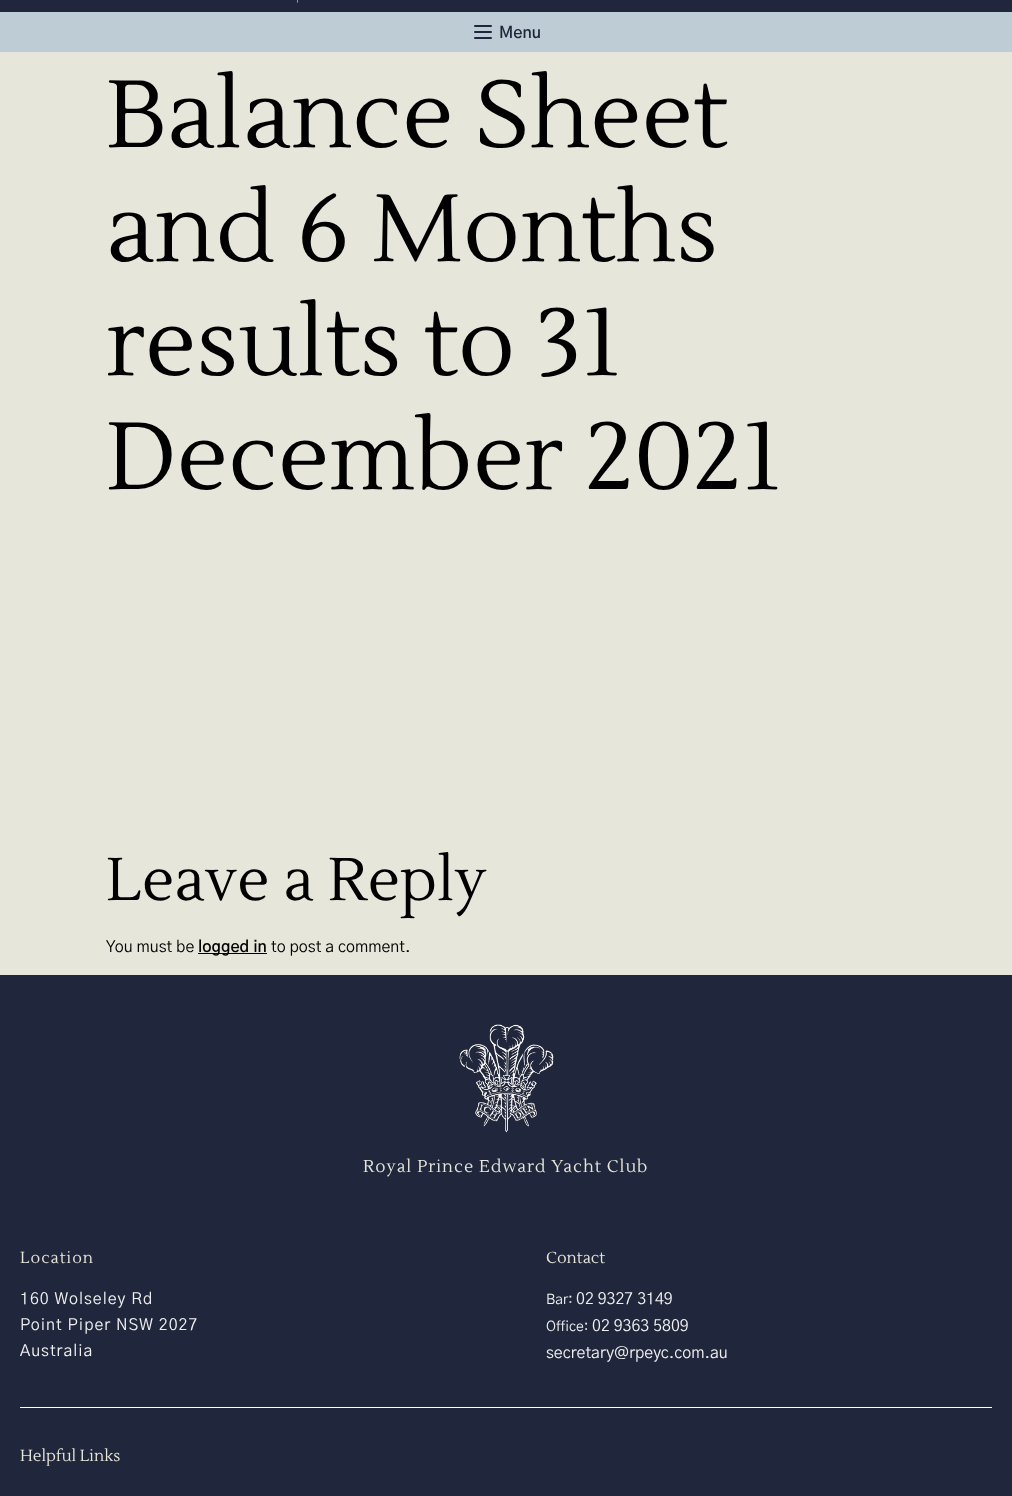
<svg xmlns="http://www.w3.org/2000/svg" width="1012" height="1496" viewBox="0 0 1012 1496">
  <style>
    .t1 { font: 600 16px 'Gothic A1'; fill: #20263b; }
    .t2 { font: 95px Lustria; fill: #000; }
    .t3 { font: 60px Lustria; fill: #000; }
    .t4 { font: 16px 'Gothic A1'; fill: #000; }
    .t5 { font: 600 16px 'Gothic A1'; fill: #000; }
    .t6 { font: 17px Lustria; letter-spacing: 1px; fill: #e7e6da; }
    .t7 { font: 16px Lustria; letter-spacing: 1px; fill: #e7e6da; }
    .t8 { font: 16px 'Gothic A1'; letter-spacing: 1px; fill: #f0f0f0; }
    .t9 { font: 16px Lustria; fill: #e7e6da; }
    .t10 { font: 14px 'Gothic A1'; fill: #f0f0f0; }
    .t11 { font: 16px 'Gothic A1'; fill: #f0f0f0; }
  </style>
  <rect width="100%" height="100%" fill="#e7e6da"/>
  <rect x="0" y="0" width="1012" height="12" fill="#20263b"/>
  <image x="297" y="0" width="2" height="3" href="images/1.png"/>
  <rect x="0" y="12" width="1012" height="40" fill="#bdccd5"/>
  <image x="474" y="25" width="18" height="14" href="images/2.png"/>
  <text x="499" y="38" class="t1">Menu</text>
  <text x="106" y="147" class="t2">Balance Sheet</text>
  <text x="106" y="261" class="t2">and 6 Months</text>
  <text x="106" y="375" class="t2">results to 31</text>
  <text x="106" y="489" class="t2">December 2021</text>
  <text x="106" y="900" class="t3">Leave a Reply</text>
  <text x="106" y="952" class="t4">You must be</text>
  <rect x="198" y="953" width="69" height="1" fill="#000"/>
  <text x="198" y="952" class="t5">logged in</text>
  <text x="271" y="952" class="t4">to post a comment.</text>
  <rect x="0" y="975" width="1012" height="521" fill="#20263b"/>
  <image x="459" y="1024" width="95" height="109" href="images/3.png"/>
  <text x="363" y="1172" class="t6">Royal Prince Edward Yacht Club</text>
  <text x="20" y="1263" class="t7">Location</text>
  <text x="20" y="1304" class="t8">160 Wolseley Rd</text>
  <text x="20" y="1330" class="t8">Point Piper NSW 2027</text>
  <text x="20" y="1356" class="t8">Australia</text>
  <text x="546" y="1263" class="t9">Contact</text>
  <text x="546" y="1304" class="t10">Bar:</text>
  <text x="576" y="1304" class="t11">02 9327 3149</text>
  <text x="546" y="1331" class="t10">Office:</text>
  <text x="592" y="1331" class="t11">02 9363 5809</text>
  <text x="546" y="1358" class="t11">secretary@rpeyc.com.au</text>
  <rect x="20" y="1407" width="972" height="1" fill="#fff"/>
  <text x="20" y="1461" class="t9">Helpful Links</text>
</svg>
